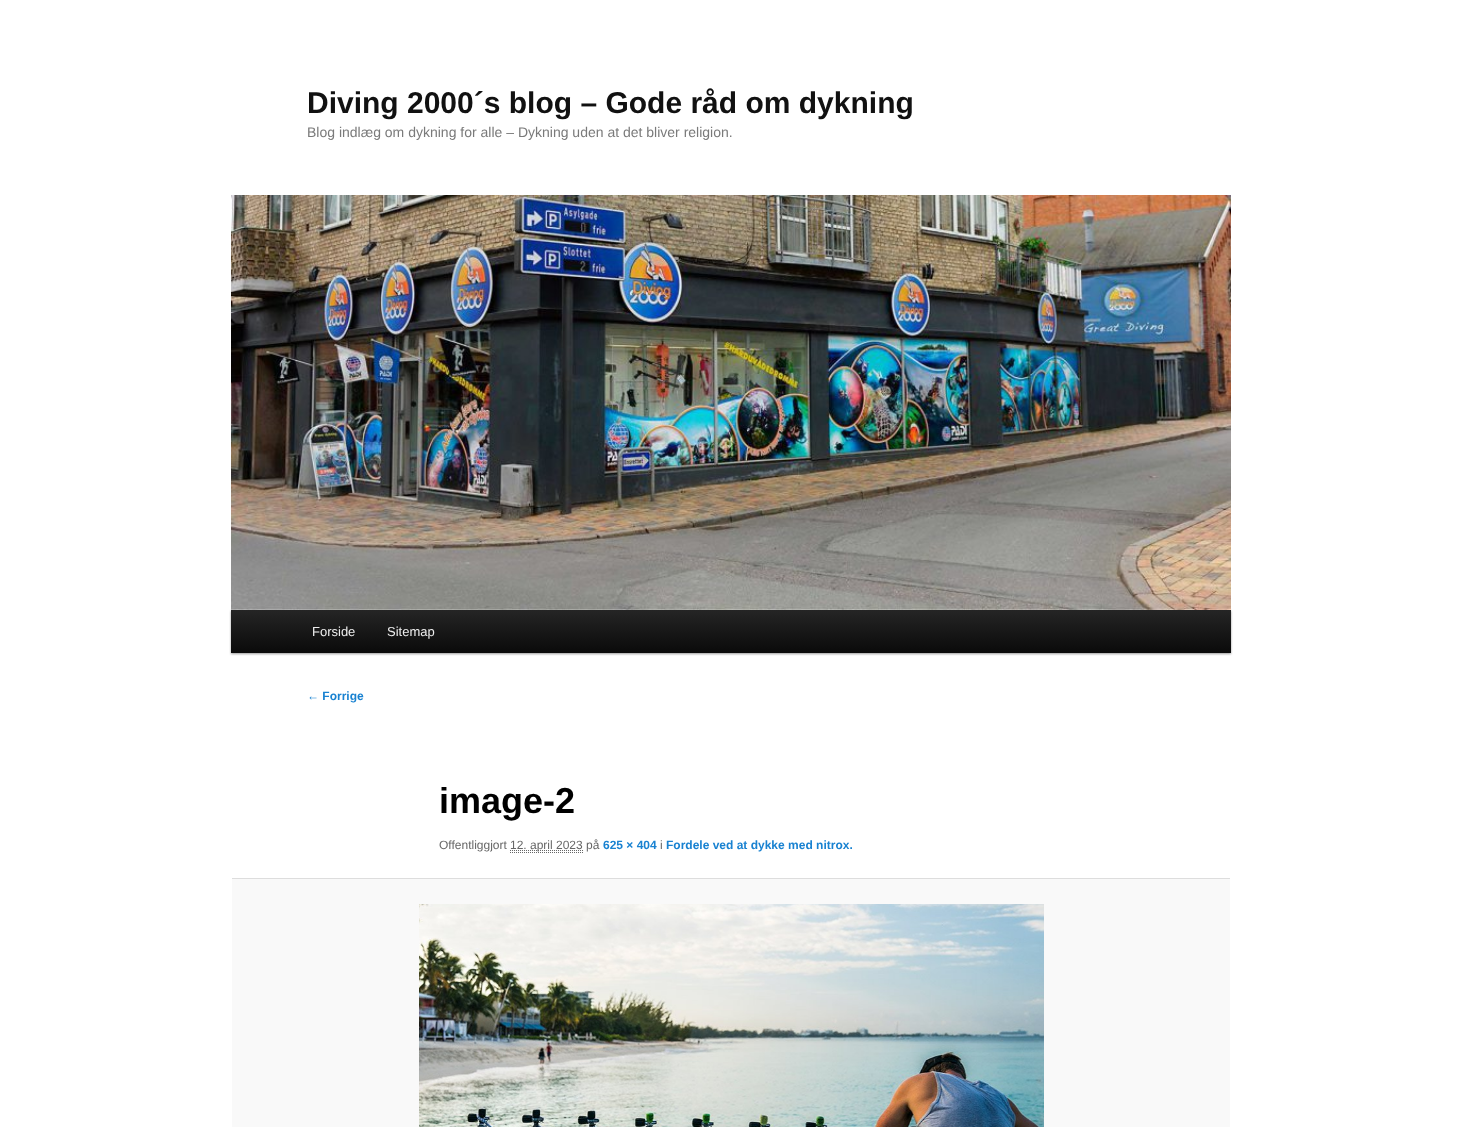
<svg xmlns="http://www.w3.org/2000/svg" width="1462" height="1127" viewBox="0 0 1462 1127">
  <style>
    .t1 { font: bold 30px Liberation Sans; fill: #111; }
    .t2 { font: 14px Liberation Sans; fill: #7a7a7a; }
    .t3 { font: 13px Liberation Sans; fill: #eee; }
    .t4 { font: bold 12px Liberation Sans; fill: #1982d1; }
    .t5 { font: bold 36px Liberation Sans; fill: #000; }
    .t6 { font: 12px Liberation Sans; fill: #666; }
  </style>
  <defs>
    <linearGradient id="g1" gradientUnits="userSpaceOnUse" x1="731" y1="610" x2="731" y2="653"><stop offset="0" stop-color="#252525"/><stop offset="1" stop-color="#0a0a0a"/></linearGradient>
  </defs>
  <rect width="100%" height="100%" fill="#fff"/>
  <text x="307" y="113" class="t1">Diving 2000´s blog – Gode råd om dykning</text>
  <text x="307" y="137" class="t2">Blog indlæg om dykning for alle – Dykning uden at det bliver religion.</text>
  <rect x="231" y="611" width="1000" height="43" fill="#00000066" filter="blur(1px)"/>
  <image x="231" y="195" width="1000" height="415" href="images/1.png"/>
  <rect x="231" y="610" width="1000" height="43" fill="url(#g1)"/>
  <text x="312" y="636" class="t3">Forside</text>
  <text x="387" y="636" class="t3">Sitemap</text>
  <text x="307" y="700" class="t4">← Forrige</text>
  <text x="439" y="813" class="t5">image-2</text>
  <text x="439" y="849" class="t6">Offentliggjort</text>
  <path d="M510 850.5H583" fill="none" stroke="#666" stroke-dasharray="1 1"/>
  <text x="510" y="849" class="t6">12. april 2023 på</text>
  <path d="M510 852.5H583" fill="none" stroke="#666" stroke-dasharray="1 1"/>
  <text x="603" y="849" class="t4">625 × 404</text>
  <text x="660" y="849" class="t6">i</text>
  <text x="666" y="849" class="t4">Fordele ved at dykke med nitrox.</text>
  <rect x="232" y="879" width="998" height="248" fill="#f9f9f9"/>
  <rect x="232" y="878" width="998" height="1" fill="#ddd"/>
  <image x="419" y="904" width="625" height="223" href="images/2.png"/>
</svg>
